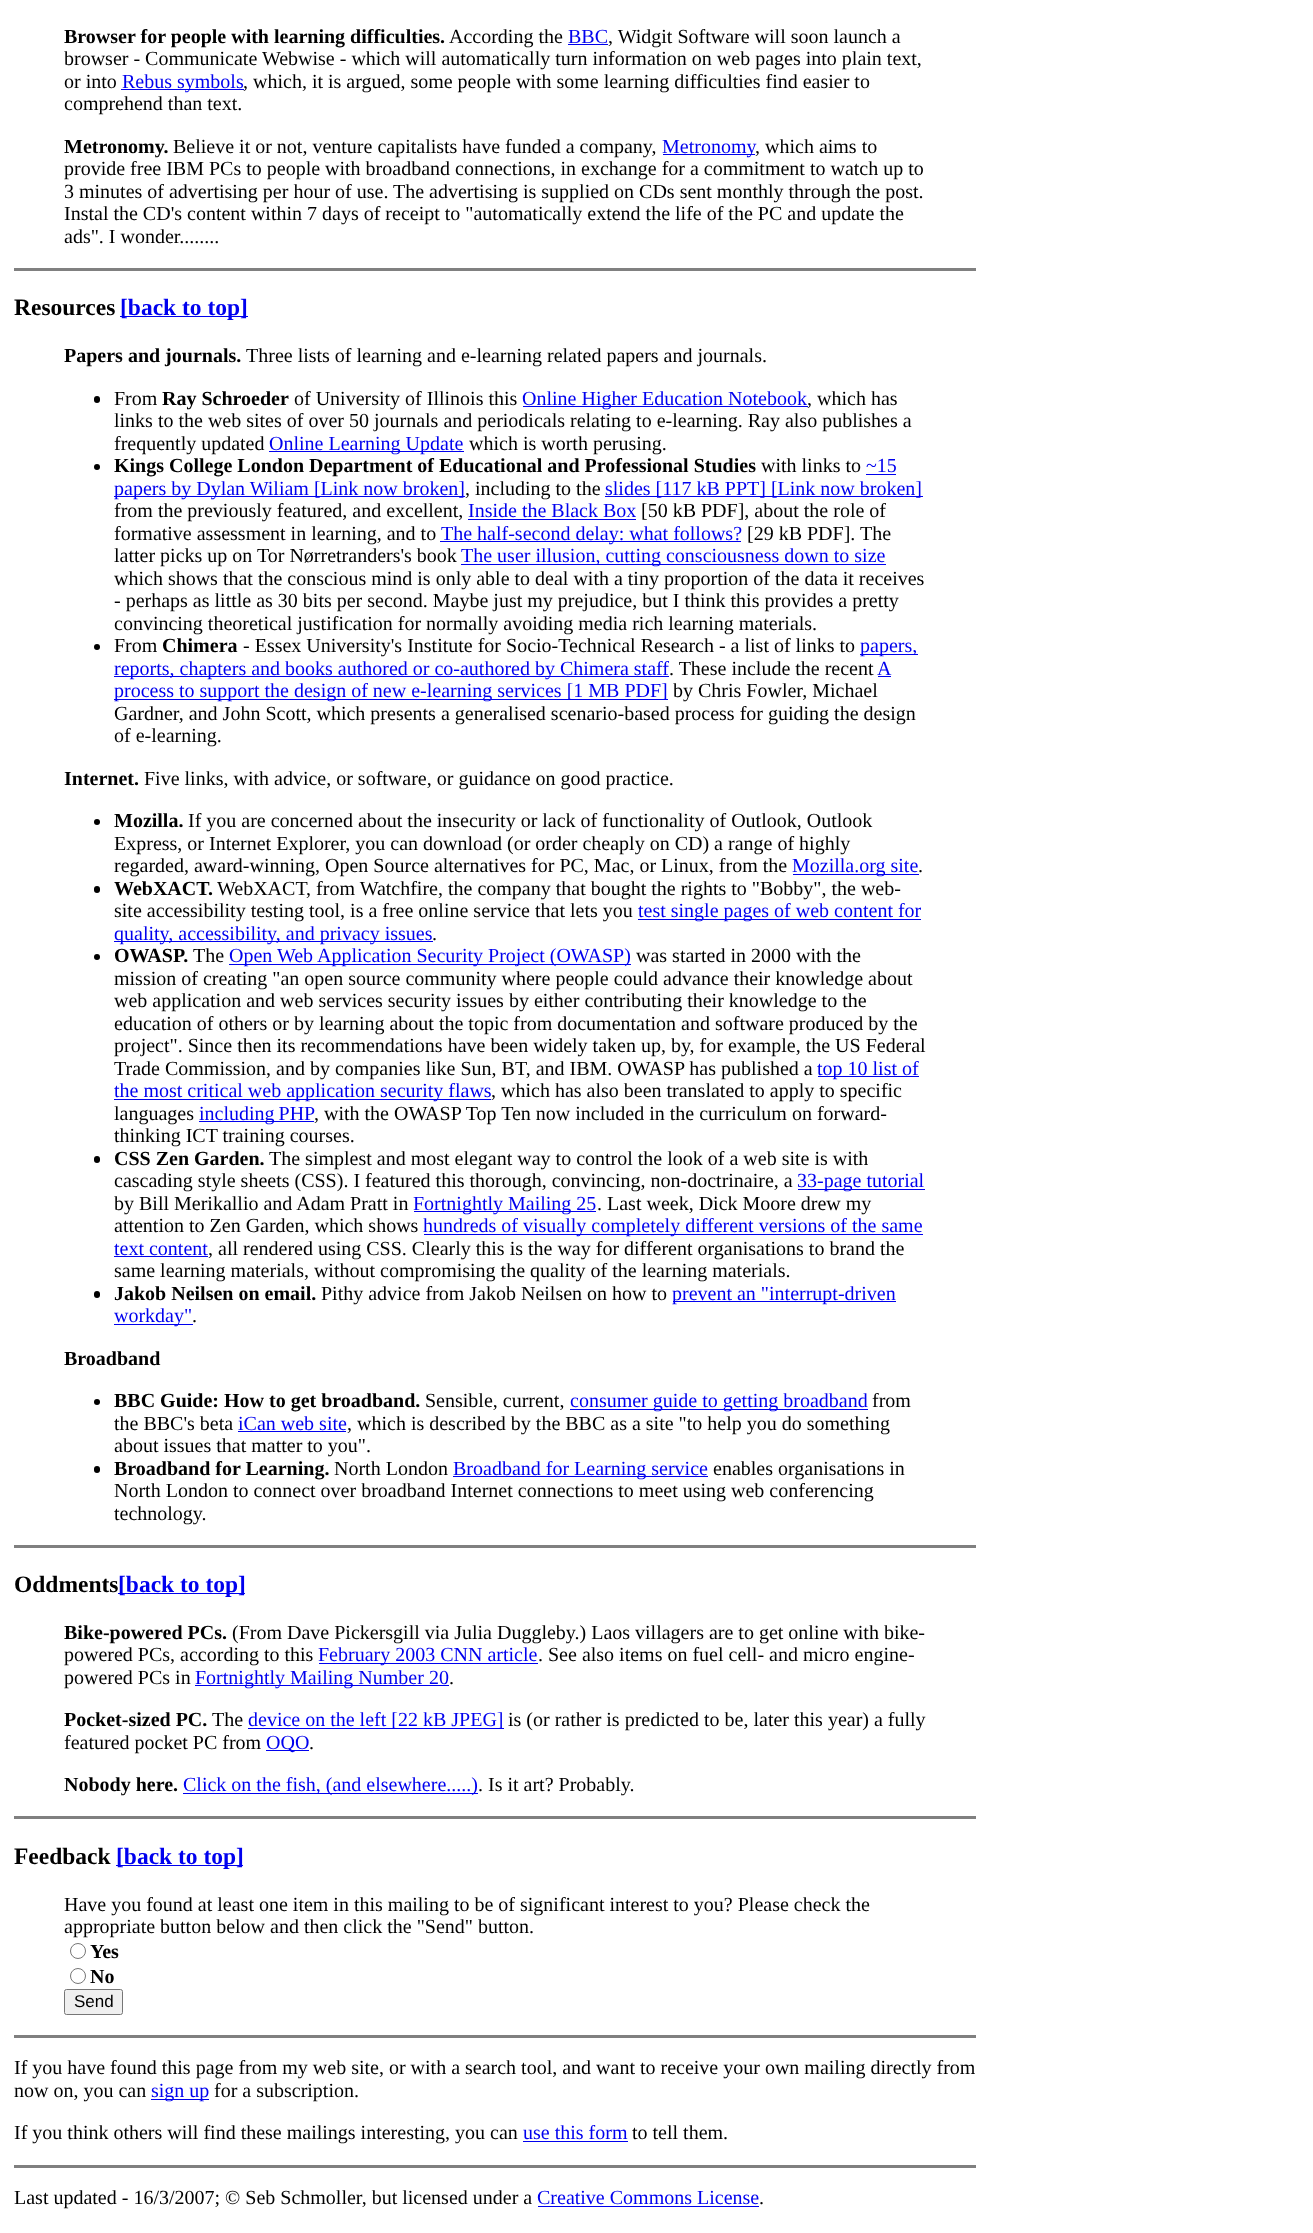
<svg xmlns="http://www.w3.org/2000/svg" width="1313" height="2233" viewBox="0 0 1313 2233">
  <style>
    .t1 { font: bold 20px Liberation Serif; fill: #000; }
    .t2 { font: 20px Liberation Serif; fill: #000; }
    .t3 { font: 20px Liberation Serif; fill: #00e; }
    .t4 { font: bold 23.5px Liberation Serif; fill: #000; }
    .t5 { font: bold 23.5px Liberation Serif; fill: #00e; }
    .t6 { font: 17px Liberation Sans; fill: #000; }
  </style>
  <rect width="100%" height="100%" fill="#fff"/>
  <text x="64" y="43" class="t1">Browser for people with learning difficulties.</text>
  <text x="449" y="43" class="t2">According the</text>
  <text x="568" y="43" class="t3">BBC</text>
  <rect x="568" y="44" width="40" height="1" fill="#00e"/>
  <text x="608" y="43" class="t2">, Widgit Software will soon launch a</text>
  <text x="64" y="65" class="t2">browser - Communicate Webwise - which will automatically turn information on web pages into plain text,</text>
  <text x="64" y="88" class="t2">or into</text>
  <rect x="121" y="89" width="123" height="1" fill="#00e"/>
  <text x="122" y="88" class="t3">Rebus symbols</text>
  <text x="243" y="88" class="t2">, which, it is argued, some people with some learning difficulties find easier to</text>
  <text x="64" y="110" class="t2">comprehend than text.</text>
  <text x="64" y="153" class="t1">Metronomy.</text>
  <text x="173" y="153" class="t2">Believe it or not, venture capitalists have funded a company,</text>
  <rect x="663" y="154" width="92" height="1" fill="#00e"/>
  <text x="662" y="153" class="t3">Metronomy</text>
  <text x="755" y="153" class="t2">, which aims to</text>
  <text x="64" y="175" class="t2">provide free IBM PCs to people with broadband connections, in exchange for a commitment to watch up to</text>
  <text x="64" y="198" class="t2">3 minutes of advertising per hour of use. The advertising is supplied on CDs sent monthly through the post.</text>
  <text x="64" y="220" class="t2">Instal the CD's content within 7 days of receipt to "automatically extend the life of the PC and update the</text>
  <text x="64" y="243" class="t2">ads". I wonder........</text>
  <rect x="14" y="268" width="962" height="3" fill="#808080"/>
  <text x="14" y="315" class="t4">Resources</text>
  <rect x="120" y="316" width="128" height="1" fill="#00e"/>
  <text x="120" y="315" class="t5">[back to top]</text>
  <text x="64" y="362" class="t1">Papers and journals.</text>
  <text x="246" y="362" class="t2">Three lists of learning and e-learning related papers and journals.</text>
  <rect x="94" y="396" width="6" height="7" rx="3" fill="#000"/>
  <text x="114" y="405" class="t2">From</text>
  <text x="162" y="405" class="t1">Ray Schroeder</text>
  <text x="294" y="405" class="t2">of University of Illinois this</text>
  <rect x="523" y="406" width="285" height="1" fill="#00e"/>
  <text x="522" y="405" class="t3">Online Higher Education Notebook</text>
  <text x="807" y="405" class="t2">, which has</text>
  <text x="114" y="427" class="t2">links to the web sites of over 50 journals and periodicals relating to e-learning. Ray also publishes a</text>
  <text x="114" y="450" class="t2">frequently updated</text>
  <rect x="269" y="451" width="195" height="1" fill="#00e"/>
  <text x="269" y="450" class="t3">Online Learning Update</text>
  <text x="469" y="450" class="t2">which is worth perusing.</text>
  <circle cx="97" cy="467" r="3" fill="#000"/>
  <text x="114" y="472" class="t1">Kings College London Department of Educational and Professional Studies</text>
  <text x="761" y="472" class="t2">with links to</text>
  <text x="866" y="472" class="t3">~15</text>
  <rect x="866" y="474" width="30" height="1" fill="#00e"/>
  <rect x="114" y="496" width="351" height="1" fill="#00e"/>
  <text x="114" y="495" class="t3">papers by Dylan Wiliam [Link now broken]</text>
  <text x="465" y="495" class="t2">, including to the</text>
  <rect x="605" y="496" width="318" height="1" fill="#00e"/>
  <text x="605" y="495" class="t3">slides [117 kB PPT] [Link now broken]</text>
  <text x="114" y="517" class="t2">from the previously featured, and excellent,</text>
  <text x="468" y="517" class="t3">Inside the Black Box</text>
  <rect x="468" y="519" width="168" height="1" fill="#00e"/>
  <text x="641" y="517" class="t2">[50 kB PDF], about the role of</text>
  <text x="114" y="540" class="t2">formative assessment in learning, and to</text>
  <rect x="440" y="541" width="301" height="1" fill="#00e"/>
  <text x="441" y="540" class="t3">The half-second delay: what follows?</text>
  <text x="747" y="540" class="t2">[29 kB PDF]. The</text>
  <text x="114" y="562" class="t2">latter picks up on Tor Nørretranders's book</text>
  <rect x="461" y="564" width="425" height="1" fill="#00e"/>
  <text x="461" y="562" class="t3">The user illusion, cutting consciousness down to size</text>
  <text x="114" y="585" class="t2">which shows that the conscious mind is only able to deal with a tiny proportion of the data it receives</text>
  <text x="114" y="607" class="t2">- perhaps as little as 30 bits per second. Maybe just my prejudice, but I think this provides a pretty</text>
  <text x="114" y="630" class="t2">convincing theoretical justification for normally avoiding media rich learning materials.</text>
  <circle cx="97" cy="647" r="3" fill="#000"/>
  <text x="114" y="652" class="t2">From</text>
  <text x="162" y="652" class="t1">Chimera</text>
  <text x="243" y="652" class="t2">- Essex University's Institute for Socio-Technical Research - a list of links to</text>
  <rect x="860" y="654" width="58" height="1" fill="#00e"/>
  <text x="860" y="652" class="t3">papers,</text>
  <rect x="114" y="676" width="555" height="1" fill="#00e"/>
  <text x="114" y="675" class="t3">reports, chapters and books authored or co-authored by Chimera staff</text>
  <text x="669" y="675" class="t2">. These include the recent</text>
  <text x="877" y="675" class="t3">A</text>
  <rect x="878" y="676" width="13" height="1" fill="#00e"/>
  <rect x="114" y="699" width="554" height="1" fill="#00e"/>
  <text x="114" y="697" class="t3">process to support the design of new e-learning services [1 MB PDF]</text>
  <text x="673" y="697" class="t2">by Chris Fowler, Michael</text>
  <text x="114" y="720" class="t2">Gardner, and John Scott, which presents a generalised scenario-based process for guiding the design</text>
  <text x="114" y="742" class="t2">of e-learning.</text>
  <text x="64" y="785" class="t1">Internet.</text>
  <text x="144" y="785" class="t2">Five links, with advice, or software, or guidance on good practice.</text>
  <circle cx="97" cy="822" r="3" fill="#000"/>
  <text x="114" y="827" class="t1">Mozilla.</text>
  <text x="188" y="827" class="t2">If you are concerned about the insecurity or lack of functionality of Outlook, Outlook</text>
  <text x="114" y="850" class="t2">Express, or Internet Explorer, you can download (or order cheaply on CD) a range of highly</text>
  <text x="114" y="872" class="t2">regarded, award-winning, Open Source alternatives for PC, Mac, or Linux, from the</text>
  <rect x="793" y="874" width="126" height="1" fill="#00e"/>
  <text x="792" y="872" class="t3">Mozilla.org site</text>
  <text x="918" y="872" class="t2">.</text>
  <rect x="94" y="886" width="6" height="7" rx="3" fill="#000"/>
  <text x="114" y="895" class="t1">WebXACT.</text>
  <text x="217" y="895" class="t2">WebXACT, from Watchfire, the company that bought the rights to "Bobby", the web-</text>
  <text x="114" y="917" class="t2">site accessibility testing tool, is a free online service that lets you</text>
  <rect x="638" y="919" width="283" height="1" fill="#00e"/>
  <text x="638" y="917" class="t3">test single pages of web content for</text>
  <rect x="114" y="941" width="319" height="1" fill="#00e"/>
  <text x="114" y="940" class="t3">quality, accessibility, and privacy issues</text>
  <text x="432" y="940" class="t2">.</text>
  <circle cx="97" cy="957" r="3" fill="#000"/>
  <text x="114" y="962" class="t1">OWASP.</text>
  <text x="193" y="962" class="t2">The</text>
  <rect x="229" y="964" width="402" height="1" fill="#00e"/>
  <text x="229" y="962" class="t3">Open Web Application Security Project (OWASP)</text>
  <text x="636" y="962" class="t2">was started in 2000 with the</text>
  <text x="114" y="985" class="t2">mission of creating "an open source community where people could advance their knowledge about</text>
  <text x="114" y="1007" class="t2">web application and web services security issues by either contributing their knowledge to the</text>
  <text x="114" y="1030" class="t2">education of others or by learning about the topic from documentation and software produced by the</text>
  <text x="114" y="1052" class="t2">project". Since then its recommendations have been widely taken up, by, for example, the US Federal</text>
  <text x="114" y="1075" class="t2">Trade Commission, and by companies like Sun, BT, and IBM. OWASP has published a</text>
  <rect x="818" y="1076" width="101" height="1" fill="#00e"/>
  <text x="817" y="1075" class="t3">top 10 list of</text>
  <rect x="114" y="1099" width="377" height="1" fill="#00e"/>
  <text x="114" y="1097" class="t3">the most critical web application security flaws</text>
  <text x="491" y="1097" class="t2">, which has also been translated to apply to specific</text>
  <text x="114" y="1120" class="t2">languages</text>
  <rect x="199" y="1121" width="115" height="1" fill="#00e"/>
  <text x="199" y="1120" word-spacing="-1" class="t3">including PHP</text>
  <text x="314" y="1120" class="t2">, with the OWASP Top Ten now included in the curriculum on forward-</text>
  <text x="114" y="1142" class="t2">thinking ICT training courses.</text>
  <rect x="94" y="1156" width="6" height="7" rx="3" fill="#000"/>
  <text x="114" y="1165" class="t1">CSS Zen Garden.</text>
  <text x="269" y="1165" class="t2">The simplest and most elegant way to control the look of a web site is with</text>
  <text x="114" y="1187" class="t2">cascading style sheets (CSS). I featured this thorough, convincing, non-doctrinaire, a</text>
  <rect x="798" y="1189" width="127" height="1" fill="#00e"/>
  <text x="797" y="1187" class="t3">33-page tutorial</text>
  <text x="114" y="1210" class="t2">by Bill Merikallio and Adam Pratt in</text>
  <rect x="414" y="1211" width="182" height="1" fill="#00e"/>
  <text x="413" y="1210" class="t3">Fortnightly Mailing 25</text>
  <text x="597" y="1210" class="t2">. Last week, Dick Moore drew my</text>
  <text x="114" y="1232" class="t2">attention to Zen Garden, which shows</text>
  <rect x="424" y="1234" width="499" height="1" fill="#00e"/>
  <text x="423" y="1232" class="t3">hundreds of visually completely different versions of the same</text>
  <text x="114" y="1255" class="t3">text content</text>
  <rect x="114" y="1256" width="94" height="1" fill="#00e"/>
  <text x="208" y="1255" class="t2">, all rendered using CSS. Clearly this is the way for different organisations to brand the</text>
  <text x="114" y="1277" class="t2">same learning materials, without compromising the quality of the learning materials.</text>
  <rect x="94" y="1291" width="6" height="7" rx="3" fill="#000"/>
  <text x="114" y="1300" class="t1">Jakob Neilsen on email.</text>
  <text x="321" y="1300" class="t2">Pithy advice from Jakob Neilsen on how to</text>
  <rect x="673" y="1301" width="223" height="1" fill="#00e"/>
  <text x="672" y="1300" class="t3">prevent an "interrupt-driven</text>
  <rect x="114" y="1324" width="79" height="1" fill="#00e"/>
  <text x="114" y="1322" class="t3">workday"</text>
  <text x="192" y="1322" class="t2">.</text>
  <text x="64" y="1365" class="t1">Broadband</text>
  <circle cx="97" cy="1402" r="3" fill="#000"/>
  <text x="114" y="1407" class="t1">BBC Guide: How to get broadband.</text>
  <text x="425" y="1407" class="t2">Sensible, current,</text>
  <rect x="570" y="1409" width="298" height="1" fill="#00e"/>
  <text x="570" y="1407" class="t3">consumer guide to getting broadband</text>
  <text x="872" y="1407" class="t2">from</text>
  <text x="114" y="1430" class="t2">the BBC's beta</text>
  <text x="238" y="1430" class="t3">iCan web site</text>
  <rect x="238" y="1431" width="108" height="1" fill="#00e"/>
  <text x="347" y="1430" class="t2">, which is described by the BBC as a site "to help you do something</text>
  <text x="114" y="1452" class="t2">about issues that matter to you".</text>
  <rect x="94" y="1466" width="6" height="7" rx="3" fill="#000"/>
  <text x="114" y="1475" class="t1">Broadband for Learning.</text>
  <text x="334" y="1475" class="t2">North London</text>
  <rect x="453" y="1476" width="255" height="1" fill="#00e"/>
  <text x="453" y="1475" class="t3">Broadband for Learning service</text>
  <text x="713" y="1475" class="t2">enables organisations in</text>
  <text x="114" y="1497" class="t2">North London to connect over broadband Internet connections to meet using web conferencing</text>
  <text x="114" y="1520" class="t2">technology.</text>
  <rect x="14" y="1545" width="962" height="3" fill="#808080"/>
  <text x="14" y="1592" class="t4">Oddments</text>
  <rect x="118" y="1593" width="127" height="1" fill="#00e"/>
  <text x="118" y="1592" class="t5">[back to top]</text>
  <text x="64" y="1639" class="t1">Bike-powered PCs.</text>
  <text x="232" y="1639" class="t2">(From Dave Pickersgill via Julia Duggleby.) Laos villagers are to get online with bike-</text>
  <text x="64" y="1661" class="t2">powered PCs, according to this</text>
  <rect x="319" y="1663" width="219" height="1" fill="#00e"/>
  <text x="318" y="1661" class="t3">February 2003 CNN article</text>
  <text x="538" y="1661" class="t2">. See also items on fuel cell- and micro engine-</text>
  <text x="64" y="1684" class="t2">powered PCs in</text>
  <rect x="195" y="1685" width="254" height="1" fill="#00e"/>
  <text x="195" y="1684" class="t3">Fortnightly Mailing Number 20</text>
  <text x="449" y="1684" class="t2">.</text>
  <text x="64" y="1726" class="t1">Pocket-sized PC.</text>
  <text x="212" y="1726" class="t2">The</text>
  <rect x="248" y="1728" width="256" height="1" fill="#00e"/>
  <text x="248" y="1726" class="t3">device on the left [22 kB JPEG]</text>
  <text x="508" y="1726" class="t2">is (or rather is predicted to be, later this year) a fully</text>
  <text x="64" y="1749" class="t2">featured pocket PC from</text>
  <rect x="266" y="1750" width="43" height="1" fill="#00e"/>
  <text x="266" y="1749" class="t3">OQO</text>
  <text x="309" y="1749" class="t2">.</text>
  <text x="64" y="1791" class="t1">Nobody here.</text>
  <rect x="183" y="1793" width="295" height="1" fill="#00e"/>
  <text x="183" y="1791" class="t3">Click on the fish, (and elsewhere.....)</text>
  <text x="478" y="1791" class="t2">. Is it art? Probably.</text>
  <rect x="14" y="1816" width="962" height="3" fill="#808080"/>
  <text x="14" y="1864" class="t4">Feedback</text>
  <rect x="116" y="1865" width="127" height="1" fill="#00e"/>
  <text x="116" y="1864" class="t5">[back to top]</text>
  <text x="64" y="1911" class="t2">Have you found at least one item in this mailing to be of significant interest to you? Please check the</text>
  <text x="64" y="1933" class="t2">appropriate button below and then click the "Send" button.</text>
  <circle cx="78" cy="1951" r="7.5" fill="none" stroke="#767676"/>
  <text x="90" y="1958" class="t1">Yes</text>
  <circle cx="78" cy="1976" r="7.5" fill="none" stroke="#767676"/>
  <text x="90" y="1983" class="t1">No</text>
  <rect x="64.5" y="1989.5" width="58" height="25" rx="2" fill="#efefef" stroke="#767676"/>
  <text x="74" y="2007" class="t6">Send</text>
  <rect x="14" y="2035" width="962" height="3" fill="#808080"/>
  <text x="14" y="2074" class="t2">If you have found this page from my web site, or with a search tool, and want to receive your own mailing directly from</text>
  <text x="14" y="2097" class="t2">now on, you can</text>
  <rect x="151" y="2099" width="58" height="1" fill="#00e"/>
  <text x="151" y="2097" class="t3">sign up</text>
  <text x="214" y="2097" class="t2">for a subscription.</text>
  <text x="14" y="2139" class="t2">If you think others will find these mailings interesting, you can</text>
  <text x="523" y="2139" class="t3">use this form</text>
  <rect x="523" y="2141" width="105" height="1" fill="#00e"/>
  <text x="632" y="2139" class="t2">to tell them.</text>
  <rect x="14" y="2165" width="962" height="3" fill="#808080"/>
  <text x="14" y="2204" class="t2">Last updated - 16/3/2007; © Seb Schmoller, but licensed under a</text>
  <text x="537" y="2204" class="t3">Creative Commons License</text>
  <rect x="538" y="2206" width="221" height="1" fill="#00e"/>
  <text x="759" y="2204" class="t2">.</text>
</svg>
